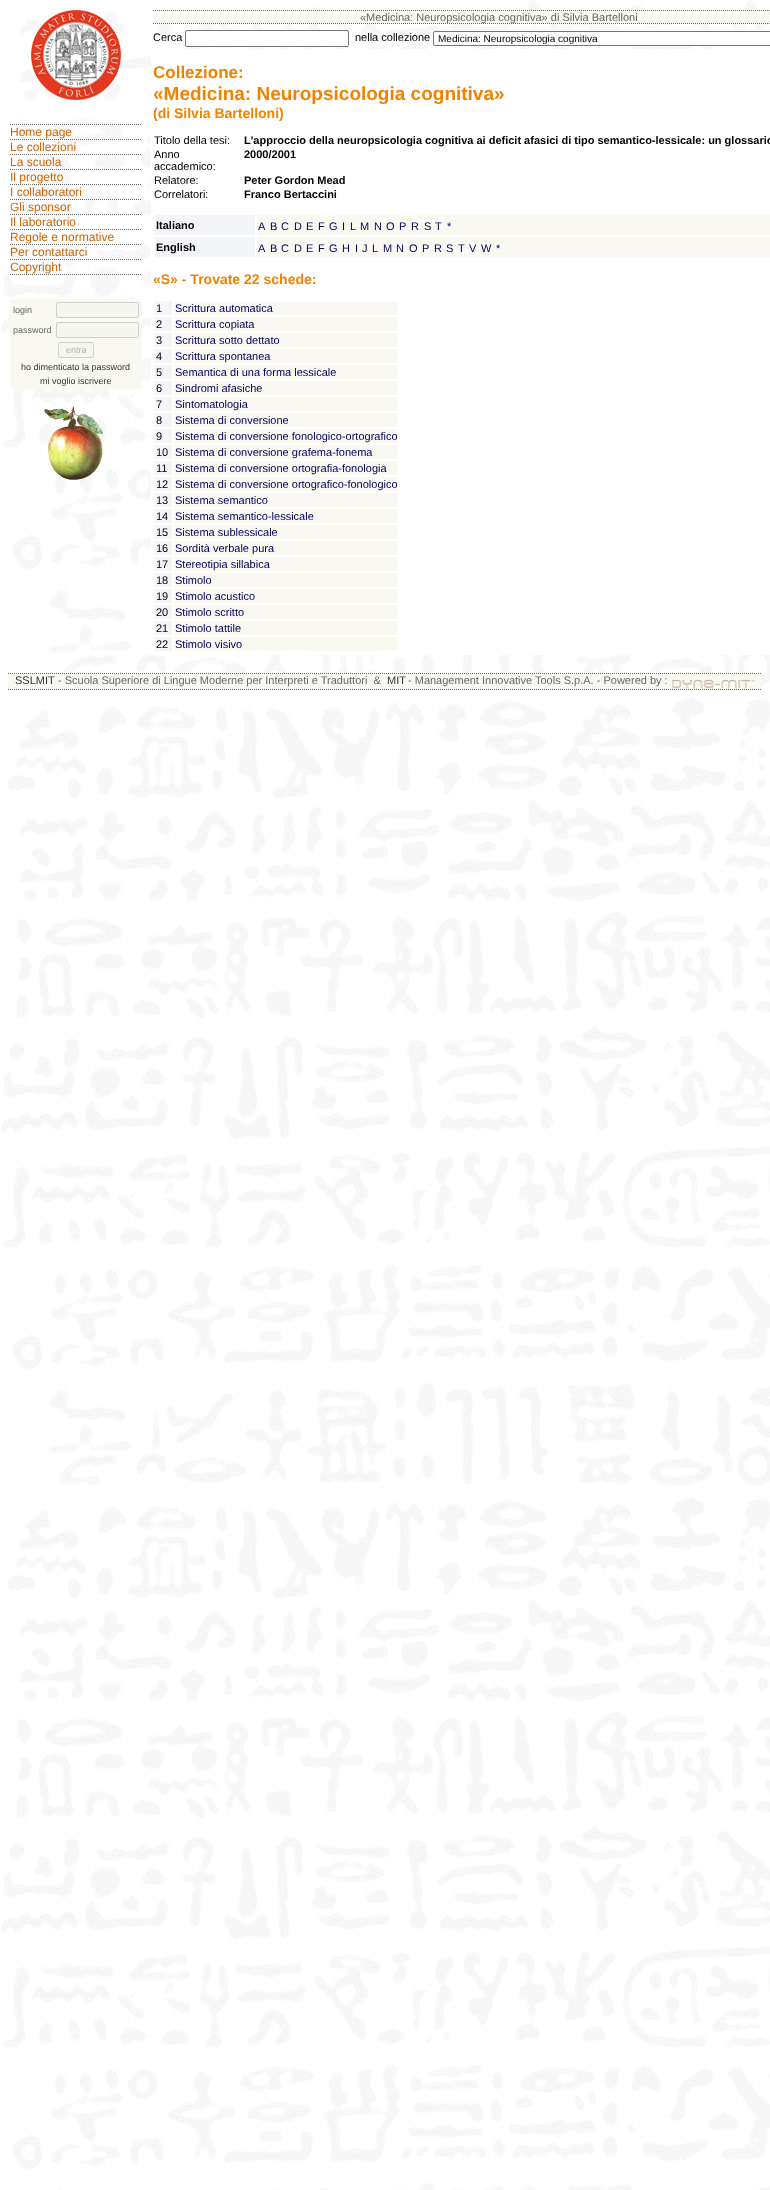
<svg xmlns="http://www.w3.org/2000/svg" width="770" height="2190" viewBox="0 0 770 2190">
  <style>
    .t1 { font: 11px Liberation Sans; fill: #666; }
    .t2 { font: 11px Liberation Sans; fill: #000; }
    .t3 { font: 10px Liberation Sans; fill: #000; }
    .t4 { font: 12px Liberation Sans; fill: #d06200; }
    .t5 { font: 9px Liberation Sans; fill: #666; }
    .t6 { font: 9px Liberation Sans; fill: #b1b1ae; }
    .t7 { font: 9px Liberation Sans; fill: #333; }
    .t8 { font: bold 17px Liberation Sans; fill: #f08200; }
    .t9 { font: bold 19px Liberation Sans; fill: #f08200; }
    .t10 { font: bold 14px Liberation Sans; fill: #f08200; }
    .t11 { font: bold 11px Liberation Sans; fill: #000; }
    .t12 { font: 11px Liberation Sans; fill: #000060; }
    .t13 { font: 11px Liberation Sans; fill: #333; }
  </style>
  <rect width="100%" height="100%" fill="#fff"/>
  <image x="0" y="0" width="770" height="2190" href="images/1.png"/>
  <image x="153" y="10" width="617" height="1" href="images/2.png"/>
  <rect x="153" y="11" width="617" height="12" fill="#f9f9f2"/>
  <image x="153" y="23" width="617" height="1" href="images/2.png"/>
  <text x="360" y="21" class="t1">«Medicina: Neuropsicologia cognitiva» di Silvia Bartelloni</text>
  <text x="153" y="41" class="t2">Cerca</text>
  <rect x="185.5" y="30.5" width="163" height="16" rx="1.5" fill="#fff" stroke="#767676"/>
  <text x="355" y="41" class="t2">nella collezione</text>
  <rect x="433.5" y="31.5" width="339" height="14" rx="1.5" fill="#fff" stroke="#767676"/>
  <text x="438" y="42" class="t3">Medicina: Neuropsicologia cognitiva</text>
  <image x="31" y="10" width="90" height="90" href="images/3.png"/>
  <image x="10" y="124" width="131" height="1" href="images/4.png"/>
  <text x="10" y="136" class="t4">Home page</text>
  <image x="10" y="139" width="131" height="1" href="images/4.png"/>
  <text x="10" y="151" class="t4">Le collezioni</text>
  <image x="10" y="154" width="131" height="1" href="images/4.png"/>
  <text x="10" y="166" class="t4">La scuola</text>
  <image x="10" y="169" width="131" height="1" href="images/4.png"/>
  <text x="10" y="181" class="t4">Il progetto</text>
  <image x="10" y="184" width="131" height="1" href="images/4.png"/>
  <text x="10" y="196" class="t4">I collaboratori</text>
  <image x="10" y="199" width="131" height="1" href="images/4.png"/>
  <text x="10" y="211" class="t4">Gli sponsor</text>
  <image x="10" y="214" width="131" height="1" href="images/4.png"/>
  <text x="10" y="226" class="t4">Il laboratorio</text>
  <image x="10" y="229" width="131" height="1" href="images/4.png"/>
  <text x="10" y="241" class="t4">Regole e normative</text>
  <image x="10" y="244" width="131" height="1" href="images/4.png"/>
  <text x="10" y="256" class="t4">Per contattarci</text>
  <image x="10" y="259" width="132" height="1" href="images/5.png"/>
  <text x="10" y="271" class="t4">Copyright</text>
  <image x="10" y="274" width="131" height="1" href="images/4.png"/>
  <rect x="10" y="299" width="132" height="90" fill="#f9f9f2"/>
  <text x="13" y="313" class="t5">login</text>
  <rect x="56.5" y="302.5" width="82" height="15" rx="1.5" fill="#f6f6f1" stroke="#d0d0cc"/>
  <text x="13" y="333" class="t5">password</text>
  <rect x="56.5" y="322.5" width="82" height="15" rx="1.5" fill="#f6f6f1" stroke="#d0d0cc"/>
  <rect x="58.5" y="342.5" width="35" height="15" rx="1.5" fill="#f6f6f1" stroke="#d0d0cc"/>
  <text x="66" y="353" class="t6">entra</text>
  <text x="21" y="370" class="t7">ho dimenticato la password</text>
  <text x="40" y="384" class="t7">mi voglio iscrivere</text>
  <image x="44" y="406" width="59" height="74" href="images/6.png"/>
  <rect x="151" y="49" width="619" height="606" fill="#fff"/>
  <text x="153" y="78" class="t8">Collezione:</text>
  <text x="153" y="100" class="t9">«Medicina: Neuropsicologia cognitiva»</text>
  <text x="153" y="118" class="t10">(di Silvia Bartelloni)</text>
  <text x="154" y="144" class="t2">Titolo della tesi:</text>
  <text x="244" y="144" class="t11">L'approccio della neuropsicologia cognitiva ai deficit afasici di tipo semantico-lessicale: un glossario</text>
  <text x="154" y="158" class="t2">Anno</text>
  <text x="154" y="170" class="t2">accademico:</text>
  <text x="244" y="158" class="t11">2000/2001</text>
  <text x="154" y="184" class="t2">Relatore:</text>
  <text x="244" y="184" class="t11">Peter Gordon Mead</text>
  <text x="154" y="198" class="t2">Correlatori:</text>
  <text x="244" y="198" class="t11">Franco Bertaccini</text>
  <rect x="155" y="215" width="100" height="20" fill="#f3f5f9"/>
  <text x="156" y="229" class="t11">Italiano</text>
  <rect x="257" y="215" width="513" height="20" fill="#f9f9f2"/>
  <text x="258" y="230" class="t12">A</text>
  <text x="270" y="230" class="t12">B</text>
  <text x="281" y="230" class="t12">C</text>
  <text x="294" y="230" class="t12">D</text>
  <text x="306" y="230" class="t12">E</text>
  <text x="318" y="230" class="t12">F</text>
  <text x="329" y="230" class="t12">G</text>
  <text x="342" y="230" class="t12">I</text>
  <text x="350" y="230" class="t12">L</text>
  <text x="360" y="230" class="t12">M</text>
  <text x="374" y="230" class="t12">N</text>
  <text x="386" y="230" class="t12">O</text>
  <text x="399" y="230" class="t12">P</text>
  <text x="411" y="230" class="t12">R</text>
  <text x="424" y="230" class="t12">S</text>
  <text x="435" y="230" class="t12">T</text>
  <text x="447" y="230" class="t12">*</text>
  <rect x="155" y="237" width="100" height="20" fill="#f3f5f9"/>
  <text x="156" y="251" class="t11">English</text>
  <rect x="257" y="237" width="513" height="20" fill="#f9f9f2"/>
  <text x="258" y="252" class="t12">A</text>
  <text x="270" y="252" class="t12">B</text>
  <text x="281" y="252" class="t12">C</text>
  <text x="294" y="252" class="t12">D</text>
  <text x="306" y="252" class="t12">E</text>
  <text x="318" y="252" class="t12">F</text>
  <text x="329" y="252" class="t12">G</text>
  <text x="342" y="252" class="t12">H</text>
  <text x="355" y="252" class="t12">I</text>
  <text x="362" y="252" class="t12">J</text>
  <text x="372" y="252" class="t12">L</text>
  <text x="383" y="252" class="t12">M</text>
  <text x="396" y="252" class="t12">N</text>
  <text x="409" y="252" class="t12">O</text>
  <text x="422" y="252" class="t12">P</text>
  <text x="434" y="252" class="t12">R</text>
  <text x="446" y="252" class="t12">S</text>
  <text x="458" y="252" class="t12">T</text>
  <text x="469" y="252" class="t12">V</text>
  <text x="481" y="252" class="t12">W</text>
  <text x="496" y="252" class="t12">*</text>
  <text x="153" y="284" class="t10">«S» - Trovate 22 schede:</text>
  <rect x="155" y="301" width="17" height="14" fill="#f3f5f9"/>
  <text x="156" y="312" class="t2">1</text>
  <rect x="174" y="301" width="224" height="14" fill="#f9f9f2"/>
  <text x="175" y="312" class="t12">Scrittura automatica</text>
  <rect x="155" y="317" width="17" height="14" fill="#f3f5f9"/>
  <text x="156" y="328" class="t2">2</text>
  <rect x="174" y="317" width="224" height="14" fill="#f9f9f2"/>
  <text x="175" y="328" class="t12">Scrittura copiata</text>
  <rect x="155" y="333" width="17" height="14" fill="#f3f5f9"/>
  <text x="156" y="344" class="t2">3</text>
  <rect x="174" y="333" width="224" height="14" fill="#f9f9f2"/>
  <text x="175" y="344" class="t12">Scrittura sotto dettato</text>
  <rect x="155" y="349" width="17" height="14" fill="#f3f5f9"/>
  <text x="156" y="360" class="t2">4</text>
  <rect x="174" y="349" width="224" height="14" fill="#f9f9f2"/>
  <text x="175" y="360" class="t12">Scrittura spontanea</text>
  <rect x="155" y="365" width="17" height="14" fill="#f3f5f9"/>
  <text x="156" y="376" class="t2">5</text>
  <rect x="174" y="365" width="224" height="14" fill="#f9f9f2"/>
  <text x="175" y="376" class="t12">Semantica di una forma lessicale</text>
  <rect x="155" y="381" width="17" height="14" fill="#f3f5f9"/>
  <text x="156" y="392" class="t2">6</text>
  <rect x="174" y="381" width="224" height="14" fill="#f9f9f2"/>
  <text x="175" y="392" class="t12">Sindromi afasiche</text>
  <rect x="155" y="397" width="17" height="14" fill="#f3f5f9"/>
  <text x="156" y="408" class="t2">7</text>
  <rect x="174" y="397" width="224" height="14" fill="#f9f9f2"/>
  <text x="175" y="408" class="t12">Sintomatologia</text>
  <rect x="155" y="413" width="17" height="14" fill="#f3f5f9"/>
  <text x="156" y="424" class="t2">8</text>
  <rect x="174" y="413" width="224" height="14" fill="#f9f9f2"/>
  <text x="175" y="424" class="t12">Sistema di conversione</text>
  <rect x="155" y="429" width="17" height="14" fill="#f3f5f9"/>
  <text x="156" y="440" class="t2">9</text>
  <rect x="174" y="429" width="224" height="14" fill="#f9f9f2"/>
  <text x="175" y="440" class="t12">Sistema di conversione fonologico-ortografico</text>
  <rect x="155" y="445" width="17" height="14" fill="#f3f5f9"/>
  <text x="156" y="456" class="t2">10</text>
  <rect x="174" y="445" width="224" height="14" fill="#f9f9f2"/>
  <text x="175" y="456" class="t12">Sistema di conversione grafema-fonema</text>
  <rect x="155" y="461" width="17" height="14" fill="#f3f5f9"/>
  <text x="156" y="472" class="t2">11</text>
  <rect x="174" y="461" width="224" height="14" fill="#f9f9f2"/>
  <text x="175" y="472" class="t12">Sistema di conversione ortografia-fonologia</text>
  <rect x="155" y="477" width="17" height="14" fill="#f3f5f9"/>
  <text x="156" y="488" class="t2">12</text>
  <rect x="174" y="477" width="224" height="14" fill="#f9f9f2"/>
  <text x="175" y="488" class="t12">Sistema di conversione ortografico-fonologico</text>
  <rect x="155" y="493" width="17" height="14" fill="#f3f5f9"/>
  <text x="156" y="504" class="t2">13</text>
  <rect x="174" y="493" width="224" height="14" fill="#f9f9f2"/>
  <text x="175" y="504" class="t12">Sistema semantico</text>
  <rect x="155" y="509" width="17" height="14" fill="#f3f5f9"/>
  <text x="156" y="520" class="t2">14</text>
  <rect x="174" y="509" width="224" height="14" fill="#f9f9f2"/>
  <text x="175" y="520" class="t12">Sistema semantico-lessicale</text>
  <rect x="155" y="525" width="17" height="14" fill="#f3f5f9"/>
  <text x="156" y="536" class="t2">15</text>
  <rect x="174" y="525" width="224" height="14" fill="#f9f9f2"/>
  <text x="175" y="536" class="t12">Sistema sublessicale</text>
  <rect x="155" y="541" width="17" height="14" fill="#f3f5f9"/>
  <text x="156" y="552" class="t2">16</text>
  <rect x="174" y="541" width="224" height="14" fill="#f9f9f2"/>
  <text x="175" y="552" class="t12">Sordità verbale pura</text>
  <rect x="155" y="557" width="17" height="14" fill="#f3f5f9"/>
  <text x="156" y="568" class="t2">17</text>
  <rect x="174" y="557" width="224" height="14" fill="#f9f9f2"/>
  <text x="175" y="568" class="t12">Stereotipia sillabica</text>
  <rect x="155" y="573" width="17" height="14" fill="#f3f5f9"/>
  <text x="156" y="584" class="t2">18</text>
  <rect x="174" y="573" width="224" height="14" fill="#f9f9f2"/>
  <text x="175" y="584" class="t12">Stimolo</text>
  <rect x="155" y="589" width="17" height="14" fill="#f3f5f9"/>
  <text x="156" y="600" class="t2">19</text>
  <rect x="174" y="589" width="224" height="14" fill="#f9f9f2"/>
  <text x="175" y="600" class="t12">Stimolo acustico</text>
  <rect x="155" y="605" width="17" height="14" fill="#f3f5f9"/>
  <text x="156" y="616" class="t2">20</text>
  <rect x="174" y="605" width="224" height="14" fill="#f9f9f2"/>
  <text x="175" y="616" class="t12">Stimolo scritto</text>
  <rect x="155" y="621" width="17" height="14" fill="#f3f5f9"/>
  <text x="156" y="632" class="t2">21</text>
  <rect x="174" y="621" width="224" height="14" fill="#f9f9f2"/>
  <text x="175" y="632" class="t12">Stimolo tattile</text>
  <rect x="155" y="637" width="17" height="14" fill="#f3f5f9"/>
  <text x="156" y="648" class="t2">22</text>
  <rect x="174" y="637" width="224" height="14" fill="#f9f9f2"/>
  <text x="175" y="648" class="t12">Stimolo visivo</text>
  <image x="8" y="673" width="753" height="1" href="images/7.png"/>
  <rect x="8" y="674" width="754" height="15" fill="#f9f9f2"/>
  <text x="15" y="684" class="t13">SSLMIT</text>
  <text x="58" y="684" class="t1" xml:space="preserve">- Scuola Superiore di Lingue Moderne per Interpreti e Traduttori  &amp;</text>
  <text x="387" y="684" class="t13">MIT</text>
  <text x="408" y="684" class="t1">- Management Innovative Tools S.p.A. - Powered by :</text>
  <image x="671" y="679" width="84" height="10" href="images/8.png"/>
  <image x="8" y="689" width="753" height="1" href="images/7.png"/>
</svg>
